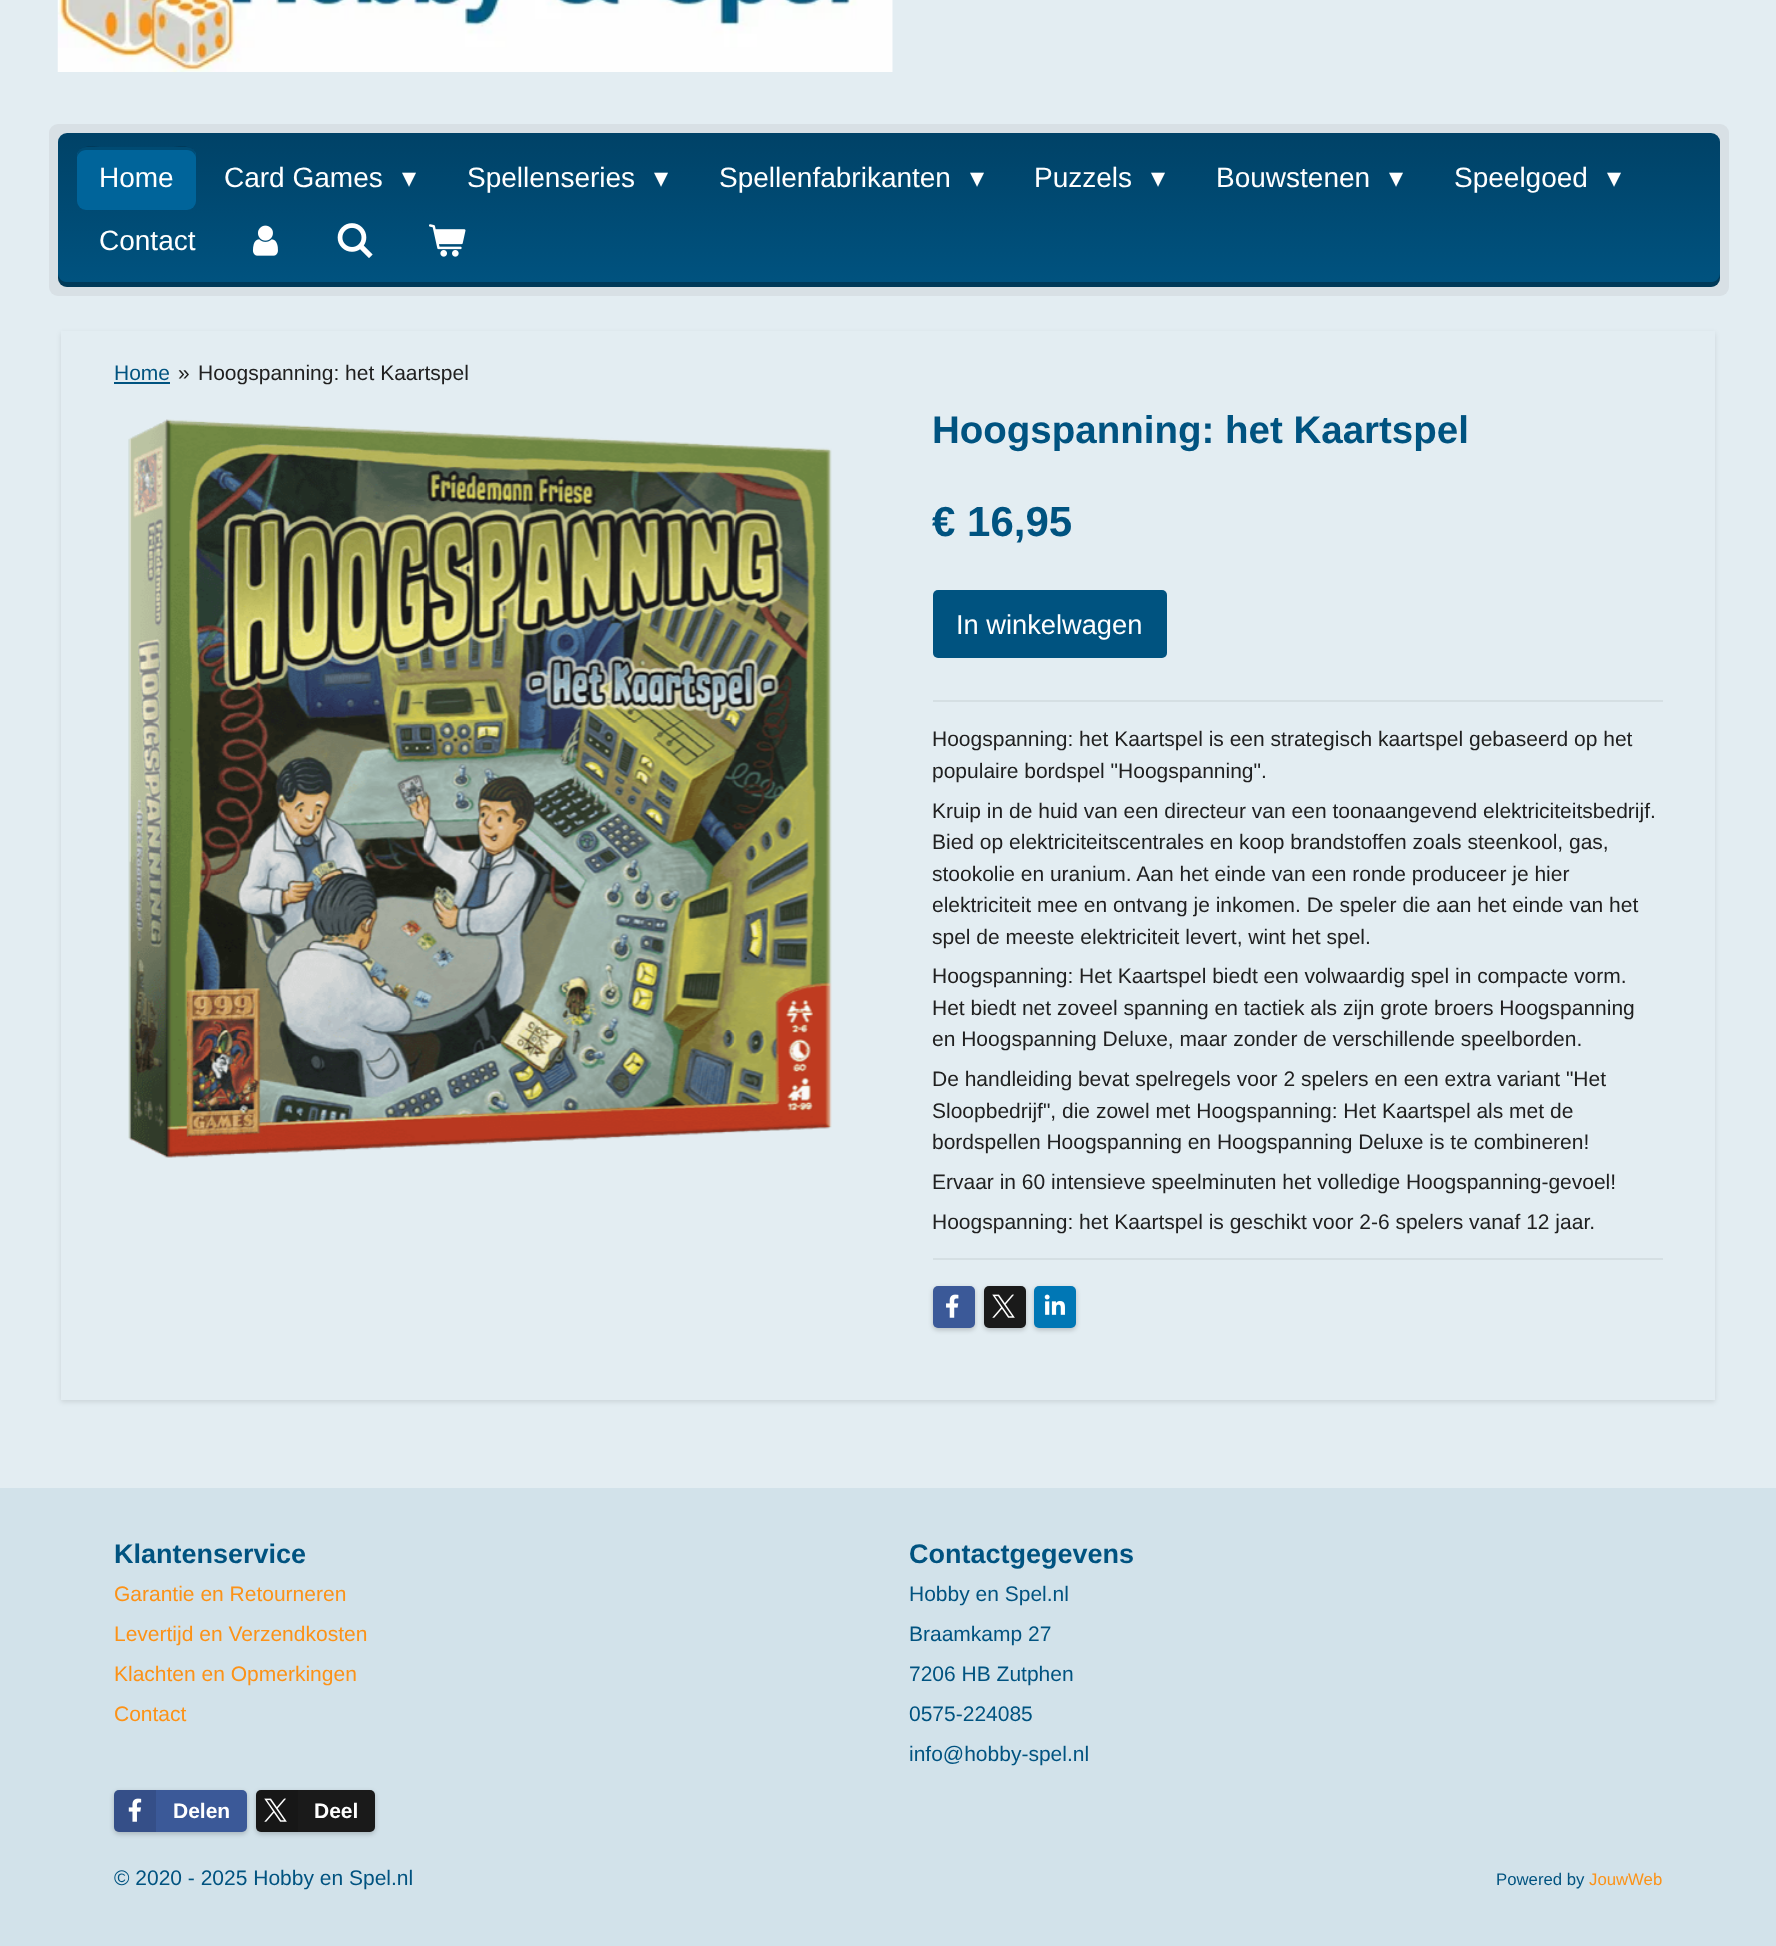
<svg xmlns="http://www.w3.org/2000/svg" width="1776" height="1946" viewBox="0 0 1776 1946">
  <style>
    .t1 { font: 28px Liberation Sans; fill: #fff; }
    .t2 { font: 28px DejaVu Sans; fill: #fff; }
    .t3 { font: 21px Liberation Sans; fill: #005380; }
    .t4 { font: 21px Liberation Sans; fill: #202020; }
    .t5 { font: bold 38.5px Liberation Sans; fill: #005380; }
    .t6 { font: bold 42px Liberation Sans; fill: #005380; }
    .t7 { font: 27.25px Liberation Sans; fill: #fff; }
    .t8 { font: bold 27px Liberation Sans; fill: #005380; }
    .t9 { font: 21px Liberation Sans; fill: #fc9217; }
    .t10 { font: bold 21px Liberation Sans; fill: #fff; }
    .t11 { font: 16.75px Liberation Sans; fill: #005380; }
    .t12 { font: 16.75px Liberation Sans; fill: #fc9217; }
  </style>
  <defs>
    <linearGradient id="g1" gradientUnits="userSpaceOnUse" x1="889" y1="133" x2="889" y2="287"><stop offset="0" stop-color="#004267"/><stop offset="1" stop-color="#005380"/></linearGradient>
    <clipPath id="clip1"><path d="M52 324H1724V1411H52ZM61 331H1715V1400H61Z" clip-rule="evenodd"/></clipPath>
  </defs>
  <rect width="100%" height="100%" fill="#e3edf2"/>
  <image x="57" y="0" width="836" height="72" href="images/1.png"/>
  <rect x="49" y="124" width="1680" height="172" rx="9" fill="#d8e0e5"/>
  <rect x="58" y="133" width="1662" height="154" rx="9" fill="url(#g1)"/>
  <path d="M58 273V278C58 283 62 287 67 287H1711C1716 287 1720 283 1720 278V273C1720 278 1716 282 1712 282H66C62 282 58 278 58 273Z" fill="#0000004d"/>
  <rect x="77" y="147" width="119" height="63" rx="9" fill="#00649a"/>
  <path d="M86 150H187C192 150 196 154 196 159C196 143 183 147 170 147H103C90 147 77 143 77 159C77 154 81 150 86 150Z" fill="#00000040"/>
  <text x="99" y="187" class="t1">Home</text>
  <text x="224" y="187" class="t1">Card Games</text>
  <text x="402" y="187" class="t2">▾</text>
  <text x="467" y="187" class="t1">Spellenseries</text>
  <text x="654" y="187" class="t2">▾</text>
  <text x="719" y="187" class="t1">Spellenfabrikanten</text>
  <text x="970" y="187" class="t2">▾</text>
  <text x="1034" y="187" class="t1">Puzzels</text>
  <text x="1151" y="187" class="t2">▾</text>
  <text x="1216" y="187" class="t1">Bouwstenen</text>
  <text x="1389" y="187" class="t2">▾</text>
  <text x="1454" y="187" class="t1">Speelgoed</text>
  <text x="1607" y="187" class="t2">▾</text>
  <text x="99" y="250" class="t1">Contact</text>
  <image x="252" y="225" width="26" height="31" href="images/2.png"/>
  <image x="337" y="223" width="36" height="35" href="images/3.png"/>
  <image x="429" y="224" width="37" height="33" href="images/4.png"/>
  <g clip-path="url(#clip1)">
    <rect x="61" y="333" width="1654" height="1069" fill="#0000001a" filter="blur(2.5px)"/>
  </g>
  <rect x="61" y="331" width="1654" height="1069" rx="9" fill="#e3edf2"/>
  <text x="114" y="380" class="t3">Home</text>
  <rect x="114" y="382" width="56" height="2" fill="#005380"/>
  <text x="178" y="380" class="t4">»</text>
  <text x="198" y="380" class="t4">Hoogspanning: het Kaartspel</text>
  <image x="128" y="419" width="704" height="739" href="images/5.png"/>
  <text x="932" y="443" class="t5">Hoogspanning: het Kaartspel</text>
  <text x="932" y="536" class="t6">€ 16,95</text>
  <rect x="933" y="590" width="234" height="68" rx="5" fill="#005380"/>
  <text x="956" y="634" class="t7">In winkelwagen</text>
  <rect x="933" y="700" width="730" height="2" fill="#d5dfe3"/>
  <text x="932" y="746" class="t4">Hoogspanning: het Kaartspel is een strategisch kaartspel gebaseerd op het</text>
  <text x="932" y="778" class="t4">populaire bordspel "Hoogspanning".</text>
  <text x="932" y="818" class="t4">Kruip in de huid van een directeur van een toonaangevend elektriciteitsbedrijf.</text>
  <text x="932" y="849" class="t4">Bied op elektriciteitscentrales en koop brandstoffen zoals steenkool, gas,</text>
  <text x="932" y="881" class="t4">stookolie en uranium. Aan het einde van een ronde produceer je hier</text>
  <text x="932" y="912" class="t4">elektriciteit mee en ontvang je inkomen. De speler die aan het einde van het</text>
  <text x="932" y="944" class="t4">spel de meeste elektriciteit levert, wint het spel.</text>
  <text x="932" y="983" class="t4">Hoogspanning: Het Kaartspel biedt een volwaardig spel in compacte vorm.</text>
  <text x="932" y="1015" class="t4">Het biedt net zoveel spanning en tactiek als zijn grote broers Hoogspanning</text>
  <text x="932" y="1046" class="t4">en Hoogspanning Deluxe, maar zonder de verschillende speelborden.</text>
  <text x="932" y="1086" class="t4">De handleiding bevat spelregels voor 2 spelers en een extra variant "Het</text>
  <text x="932" y="1118" class="t4">Sloopbedrijf", die zowel met Hoogspanning: Het Kaartspel als met de</text>
  <text x="932" y="1149" class="t4">bordspellen Hoogspanning en Hoogspanning Deluxe is te combineren!</text>
  <text x="932" y="1189" class="t4">Ervaar in 60 intensieve speelminuten het volledige Hoogspanning-gevoel!</text>
  <text x="932" y="1229" class="t4">Hoogspanning: het Kaartspel is geschikt voor 2-6 spelers vanaf 12 jaar.</text>
  <rect x="933" y="1258" width="730" height="2" fill="#d5dfe3"/>
  <rect x="933" y="1288" width="42" height="42" rx="5" fill="#00000033" filter="blur(2.5px)"/>
  <rect x="933" y="1286" width="42" height="42" rx="5" fill="#3b5998"/>
  <image x="946" y="1294" width="13" height="24" href="images/6.png"/>
  <rect x="984" y="1288" width="42" height="42" rx="5" fill="#00000033" filter="blur(2.5px)"/>
  <rect x="984" y="1286" width="42" height="42" rx="5" fill="#1a1a1a"/>
  <image x="992" y="1294" width="23" height="24" href="images/7.png"/>
  <rect x="1034" y="1288" width="42" height="42" rx="5" fill="#00000033" filter="blur(2.5px)"/>
  <rect x="1034" y="1286" width="42" height="42" rx="5" fill="#0077b5"/>
  <image x="1044" y="1294" width="21" height="21" href="images/8.png"/>
  <rect x="0" y="1488" width="1776" height="458" fill="#d2e2ea"/>
  <text x="114" y="1563" class="t8">Klantenservice</text>
  <text x="114" y="1601" class="t9">Garantie en Retourneren</text>
  <text x="114" y="1641" class="t9">Levertijd en Verzendkosten</text>
  <text x="114" y="1681" class="t9">Klachten en Opmerkingen</text>
  <text x="114" y="1721" class="t9">Contact</text>
  <text x="909" y="1563" class="t8">Contactgegevens</text>
  <text x="909" y="1601" class="t3">Hobby en Spel.nl</text>
  <text x="909" y="1641" class="t3">Braamkamp 27</text>
  <text x="909" y="1681" class="t3">7206 HB Zutphen</text>
  <text x="909" y="1721" class="t3">0575-224085</text>
  <text x="909" y="1761" class="t3">info@hobby-spel.nl</text>
  <rect x="114" y="1792" width="133" height="42" rx="5" fill="#00000033" filter="blur(2.5px)"/>
  <rect x="114" y="1790" width="133" height="42" rx="5" fill="#3b5998"/>
  <path d="M119 1790H156V1832H119C116 1832 114 1830 114 1827V1795C114 1792 116 1790 119 1790Z" fill="#0000001a"/>
  <image x="128" y="1798" width="14" height="24" href="images/9.png"/>
  <text x="173" y="1818" class="t10">Delen</text>
  <rect x="256" y="1792" width="119" height="42" rx="5" fill="#00000033" filter="blur(2.5px)"/>
  <rect x="256" y="1790" width="119" height="42" rx="5" fill="#1a1a1a"/>
  <path d="M261 1790H298V1832H261C258 1832 256 1830 256 1827V1795C256 1792 258 1790 261 1790Z" fill="#0000001a"/>
  <image x="264" y="1798" width="23" height="24" href="images/10.png"/>
  <text x="314" y="1818" class="t10">Deel</text>
  <text x="114" y="1885" class="t3">© 2020 - 2025 Hobby en Spel.nl</text>
  <text x="1496" y="1885" class="t11">Powered by</text>
  <text x="1589" y="1885" class="t12">JouwWeb</text>
</svg>
